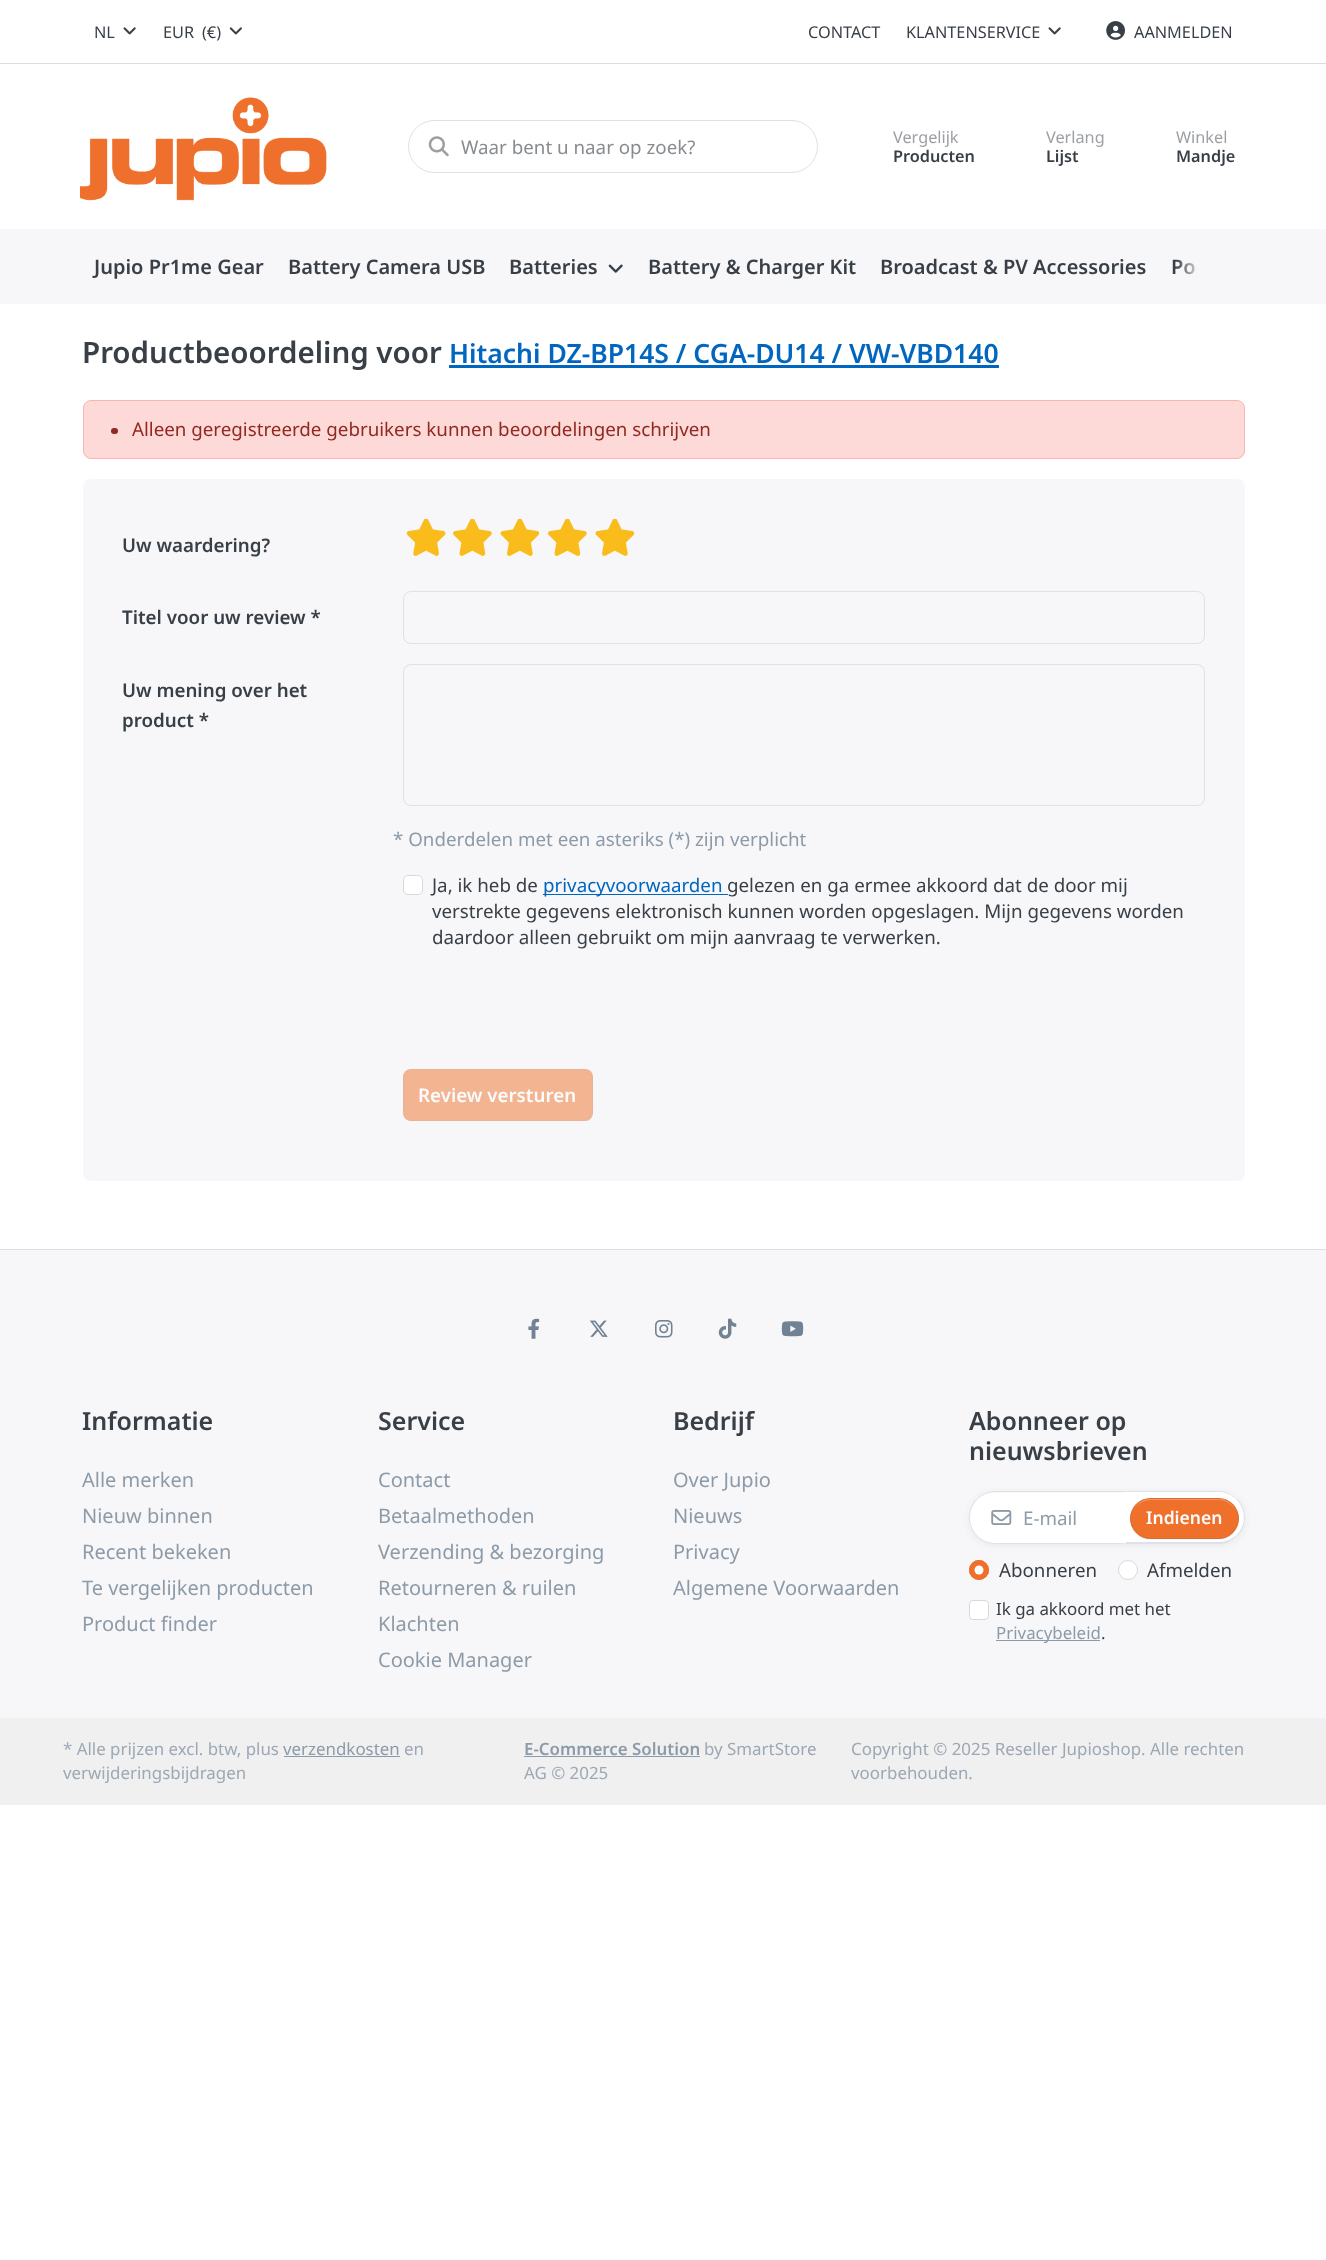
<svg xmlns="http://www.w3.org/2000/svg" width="1326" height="2260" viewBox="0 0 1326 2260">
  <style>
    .t1 { font: 16.25px Noto Sans; fill: #393f46; }
    .t2 { font: 18.75px Noto Sans; fill: #888c90; }
    .t3 { font: 16.25px Noto Sans; fill: #9c9fa3; }
    .t4 { font: 600 16.25px Noto Sans; fill: #393f46; }
    .t5 { font: 600 20px Noto Sans; fill: #393f46; }
    .t6 { font: 600 29.5px Noto Sans; fill: #393f46; }
    .t7 { font: 600 26.5px Noto Sans; fill: #0066c0; }
    .t8 { font: 18.75px Noto Sans; fill: #922820; }
    .t9 { font: 600 18.75px Noto Sans; fill: #393f46; }
    .t10 { font: 18.75px Noto Sans; fill: #8d9ba9; }
    .t11 { font: 18.75px Noto Sans; fill: #393f46; }
    .t12 { font: 18.75px Noto Sans; fill: #0066c0; }
    .t13 { font: 600 18.75px Noto Sans; fill: #fbfbfc; }
    .t14 { font: 600 25px Noto Sans; fill: #393f46; }
    .t15 { font: 20px Noto Sans; fill: #8d9ba9; }
    .t16 { font: 600 17.5px Noto Sans; fill: #fbfbfc; }
    .t17 { font: 16.9px Noto Sans; fill: #393f46; }
    .t18 { font: 16.9px Noto Sans; fill: #8d9ba9; }
    .t19 { font: 16.9px Noto Sans; fill: #9ca8b4; }
    .t20 { font: 600 16.9px Noto Sans; fill: #8d9ba9; }
  </style>
  <defs>
    <linearGradient id="g1" gradientUnits="userSpaceOnUse" x1="1175" y1="266" x2="1245" y2="266"><stop offset="0" stop-color="#f7f7f9" stop-opacity="0"/><stop offset="0.4" stop-color="#f7f7f9"/><stop offset="1" stop-color="#f7f7f9"/></linearGradient>
    <clipPath id="clip1"><path d="M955 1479H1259V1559H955ZM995.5 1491H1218.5C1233 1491 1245 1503 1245 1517.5C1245 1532 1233 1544 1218.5 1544H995.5C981 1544 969 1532 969 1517.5C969 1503 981 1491 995.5 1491Z" clip-rule="evenodd"/></clipPath>
  </defs>
  <rect width="100%" height="100%" fill="#fff"/>
  <rect x="0" y="63" width="1326" height="1" fill="#ddd"/>
  <text x="94" y="38" class="t1">NL</text>
  <image x="123" y="27" width="13" height="8" href="images/1.png"/>
  <text x="163" y="38" class="t1">EUR</text>
  <text x="202" y="38" class="t1">(€)</text>
  <image x="229" y="27" width="13" height="8" href="images/2.png"/>
  <text x="808" y="38" class="t1">CONTACT</text>
  <text x="906" y="38" class="t1">KLANTENSERVICE</text>
  <image x="1048" y="27" width="13" height="8" href="images/1.png"/>
  <image x="1106" y="21" width="19" height="19" href="images/3.png"/>
  <text x="1134" y="38" class="t1">AANMELDEN</text>
  <image x="80" y="97" width="247" height="104" href="images/4.png"/>
  <rect x="408.5" y="120.5" width="409" height="52" rx="26" fill="none" stroke="#e0e0e0"/>
  <image x="428" y="136" width="21" height="21" href="images/5.png"/>
  <text x="461" y="154" class="t2">Waar bent u naar op zoek?</text>
  <text x="893" y="143" class="t3">Vergelijk</text>
  <text x="893" y="162" class="t4">Producten</text>
  <text x="1046" y="143" class="t3">Verlang</text>
  <text x="1046" y="162" class="t4">Lijst</text>
  <text x="1176" y="143" class="t3">Winkel</text>
  <text x="1176" y="162" class="t4">Mandje</text>
  <rect x="0" y="229" width="1326" height="75" fill="#f7f7f9"/>
  <text x="94" y="274" class="t5">Jupio Pr1me Gear</text>
  <text x="288" y="274" class="t5">Battery Camera USB</text>
  <text x="509" y="274" class="t5">Batteries</text>
  <image x="608" y="264" width="15" height="9" href="images/6.png"/>
  <text x="648" y="274" class="t5">Battery &amp; Charger Kit</text>
  <text x="880" y="274" class="t5">Broadcast &amp; PV Accessories</text>
  <text x="1171" y="274" class="t5">Po</text>
  <rect x="1176" y="259" width="19" height="16" fill="url(#g1)"/>
  <text x="82" y="363" class="t6">Productbeoordeling voor</text>
  <text x="449" y="363" class="t7">Hitachi DZ-BP14S / CGA-DU14 / VW-VBD140</text>
  <rect x="449" y="365" width="550" height="3" fill="#0066c0"/>
  <rect x="83.5" y="400.5" width="1161" height="58" rx="7.5" fill="#fdd9d7" stroke="#fbb4af"/>
  <rect x="111" y="428" width="7" height="6" rx="3" fill="#922820"/>
  <text x="132" y="436" class="t8">Alleen geregistreerde gebruikers kunnen beoordelingen schrijven</text>
  <rect x="83" y="479" width="1162" height="702" rx="8" fill="#f7f7f9"/>
  <text x="122" y="552" class="t9">Uw waardering?</text>
  <image x="406" y="519" width="40" height="37" href="images/7.png"/>
  <image x="453" y="519" width="39" height="37" href="images/8.png"/>
  <image x="500" y="519" width="40" height="37" href="images/9.png"/>
  <image x="548" y="519" width="39" height="37" href="images/8.png"/>
  <image x="595" y="519" width="40" height="37" href="images/9.png"/>
  <text x="122" y="624" class="t9">Titel voor uw review *</text>
  <rect x="403.5" y="591.5" width="801" height="52" rx="7.5" fill="none" stroke="#dee2e6"/>
  <text x="122" y="697" class="t9">Uw mening over het</text>
  <text x="122" y="727" class="t9">product *</text>
  <rect x="403.5" y="664.5" width="801" height="141" rx="7.5" fill="none" stroke="#dee2e6"/>
  <text x="393" y="846" class="t10">* Onderdelen met een asteriks (*) zijn verplicht</text>
  <rect x="403" y="875" width="20" height="20" rx="5" fill="#fff"/>
  <rect x="403.5" y="875.5" width="19" height="19" rx="4.5" fill="none" stroke="#00000026"/>
  <text x="432" y="892" class="t11">Ja, ik heb de</text>
  <rect x="543" y="894" width="185" height="1" fill="#0066c0"/>
  <text x="543" y="892" class="t12">privacyvoorwaarden</text>
  <text x="727" y="892" class="t11">gelezen en ga ermee akkoord dat de door mij</text>
  <text x="432" y="918" class="t11">verstrekte gegevens elektronisch kunnen worden opgeslagen. Mijn gegevens worden</text>
  <text x="432" y="944" class="t11">daardoor alleen gebruikt om mijn aanvraag te verwerken.</text>
  <rect x="403" y="1069" width="190" height="52" rx="8" fill="#f3b492"/>
  <rect x="403.5" y="1069.5" width="189" height="51" rx="7.5" fill="none" stroke="#a8acb026"/>
  <text x="418" y="1102" class="t13">Review versturen</text>
  <rect x="0" y="1250" width="1326" height="468" fill="#f7f7f9"/>
  <rect x="0" y="1249" width="1326" height="1" fill="#dedee0"/>
  <image x="528" y="1318" width="12" height="21" href="images/10.png"/>
  <image x="589" y="1320" width="19" height="17" href="images/11.png"/>
  <image x="655" y="1320" width="18" height="18" href="images/12.png"/>
  <image x="718" y="1318" width="19" height="21" href="images/13.png"/>
  <image x="781" y="1321" width="23" height="16" href="images/14.png"/>
  <text x="82" y="1430" class="t14">Informatie</text>
  <text x="82" y="1487" class="t15">Alle merken</text>
  <text x="82" y="1523" class="t15">Nieuw binnen</text>
  <text x="82" y="1559" class="t15">Recent bekeken</text>
  <text x="82" y="1595" class="t15">Te vergelijken producten</text>
  <text x="82" y="1631" class="t15">Product finder</text>
  <text x="378" y="1430" class="t14">Service</text>
  <text x="378" y="1487" class="t15">Contact</text>
  <text x="378" y="1523" class="t15">Betaalmethoden</text>
  <text x="378" y="1559" class="t15">Verzending &amp; bezorging</text>
  <text x="378" y="1595" class="t15">Retourneren &amp; ruilen</text>
  <text x="378" y="1631" class="t15">Klachten</text>
  <text x="378" y="1667" class="t15">Cookie Manager</text>
  <text x="673" y="1430" class="t14">Bedrijf</text>
  <text x="673" y="1487" class="t15">Over Jupio</text>
  <text x="673" y="1523" class="t15">Nieuws</text>
  <text x="673" y="1559" class="t15">Privacy</text>
  <text x="673" y="1595" class="t15">Algemene Voorwaarden</text>
  <text x="969" y="1430" class="t14">Abonneer op</text>
  <text x="969" y="1460" class="t14">nieuwsbrieven</text>
  <g clip-path="url(#clip1)">
    <rect x="971" y="1495" width="272" height="48" rx="24" fill="#1a214b1f" filter="blur(5px)"/>
  </g>
  <path d="M995 1493H1124V1543H995C981 1543 970 1532 970 1518C970 1504 981 1493 995 1493Z" fill="#fff"/>
  <path d="M995.5 1491.5H1124.5V1543.5H995.5C981 1543.5 969.5 1532 969.5 1517.5C969.5 1503 981 1491.5 995.5 1491.5Z" fill="none" stroke="#dee2e6"/>
  <image x="991" y="1510" width="21" height="15" href="images/15.png"/>
  <text x="1023" y="1525" class="t10">E-mail</text>
  <path d="M1124 1491H1218.5C1233 1491 1245 1503 1245 1517.5C1245 1532 1233 1544 1218.5 1544H1124Z" fill="#fff"/>
  <path d="M1125 1492L1124 1491H1222C1228 1492 1233 1495 1237 1499V1500C1232 1495 1226 1492 1219 1492Z" fill="#dee2e6"/>
  <path d="M1237.5 1499C1247.5 1509 1247.5 1526 1237.5 1536L1236.5 1535C1246.5 1525.5 1246 1509.5 1236.5 1499.5Z" fill="#dee2e6"/>
  <path d="M1124 1544L1126 1542H1219C1226 1542 1232 1539 1236 1535L1237 1536C1233 1540 1228 1543 1222 1544Z" fill="#dee2e6"/>
  <path d="M1124 1544V1492H1125V1542H1126Z" fill="#fff"/>
  <path d="M1130 1519C1130 1529 1137 1538 1146 1540H1207C1220 1540 1232 1541 1237 1527C1239 1524 1239 1519 1239 1515V1518C1239 1530 1230 1539 1218 1539H1151C1139 1539 1130 1530 1130 1519Z" fill="#f6f6f6"/>
  <rect x="1130" y="1498" width="109" height="41" rx="20.5" fill="#ee702b"/>
  <path d="M1151 1500H1218C1229 1500 1238 1509 1238 1519C1238 1510 1231 1501 1222 1499H1207H1147C1138 1501 1131 1510 1131 1519C1131 1509 1140 1500 1151 1500Z" fill="#f29460"/>
  <rect x="1130.5" y="1498.5" width="108" height="40" rx="20" fill="none" stroke="#59616726"/>
  <text x="1146" y="1524" class="t16">Indienen</text>
  <circle cx="979" cy="1570" r="10" fill="#ee702b"/>
  <circle cx="979" cy="1570" r="4.5" fill="#fff"/>
  <circle cx="979" cy="1570" r="9.5" fill="none" stroke="#ee702b"/>
  <text x="999" y="1577" class="t11">Abonneren</text>
  <circle cx="1128" cy="1570" r="10" fill="#fff"/>
  <circle cx="1128" cy="1570" r="9.5" fill="none" stroke="#00000026"/>
  <text x="1147" y="1577" class="t11">Afmelden</text>
  <rect x="969" y="1600" width="20" height="20" rx="4" fill="#fff"/>
  <rect x="969.5" y="1600.5" width="19" height="19" rx="3.5" fill="none" stroke="#00000026"/>
  <text x="996" y="1615" class="t17">Ik ga akkoord met het</text>
  <rect x="996" y="1640" width="104" height="1" fill="#8d9ba9"/>
  <text x="996" y="1639" class="t18">Privacybeleid</text>
  <text x="1101" y="1639" class="t17">.</text>
  <rect x="0" y="1718" width="1326" height="87" fill="#f0f0f1"/>
  <text x="63" y="1755" class="t19">* Alle prijzen excl. btw, plus</text>
  <text x="283" y="1755" class="t18">verzendkosten</text>
  <rect x="284" y="1756" width="116" height="1" fill="#8d9ba9"/>
  <text x="404" y="1755" class="t19">en</text>
  <text x="63" y="1779" class="t19">verwijderingsbijdragen</text>
  <text x="524" y="1755" class="t20">E-Commerce Solution</text>
  <rect x="524" y="1756" width="176" height="1" fill="#8d9ba9"/>
  <text x="704" y="1755" class="t19">by SmartStore</text>
  <text x="524" y="1779" class="t19">AG © 2025</text>
  <text x="851" y="1755" class="t19">Copyright © 2025 Reseller Jupioshop. Alle rechten</text>
  <text x="851" y="1779" class="t19">voorbehouden.</text>
</svg>
